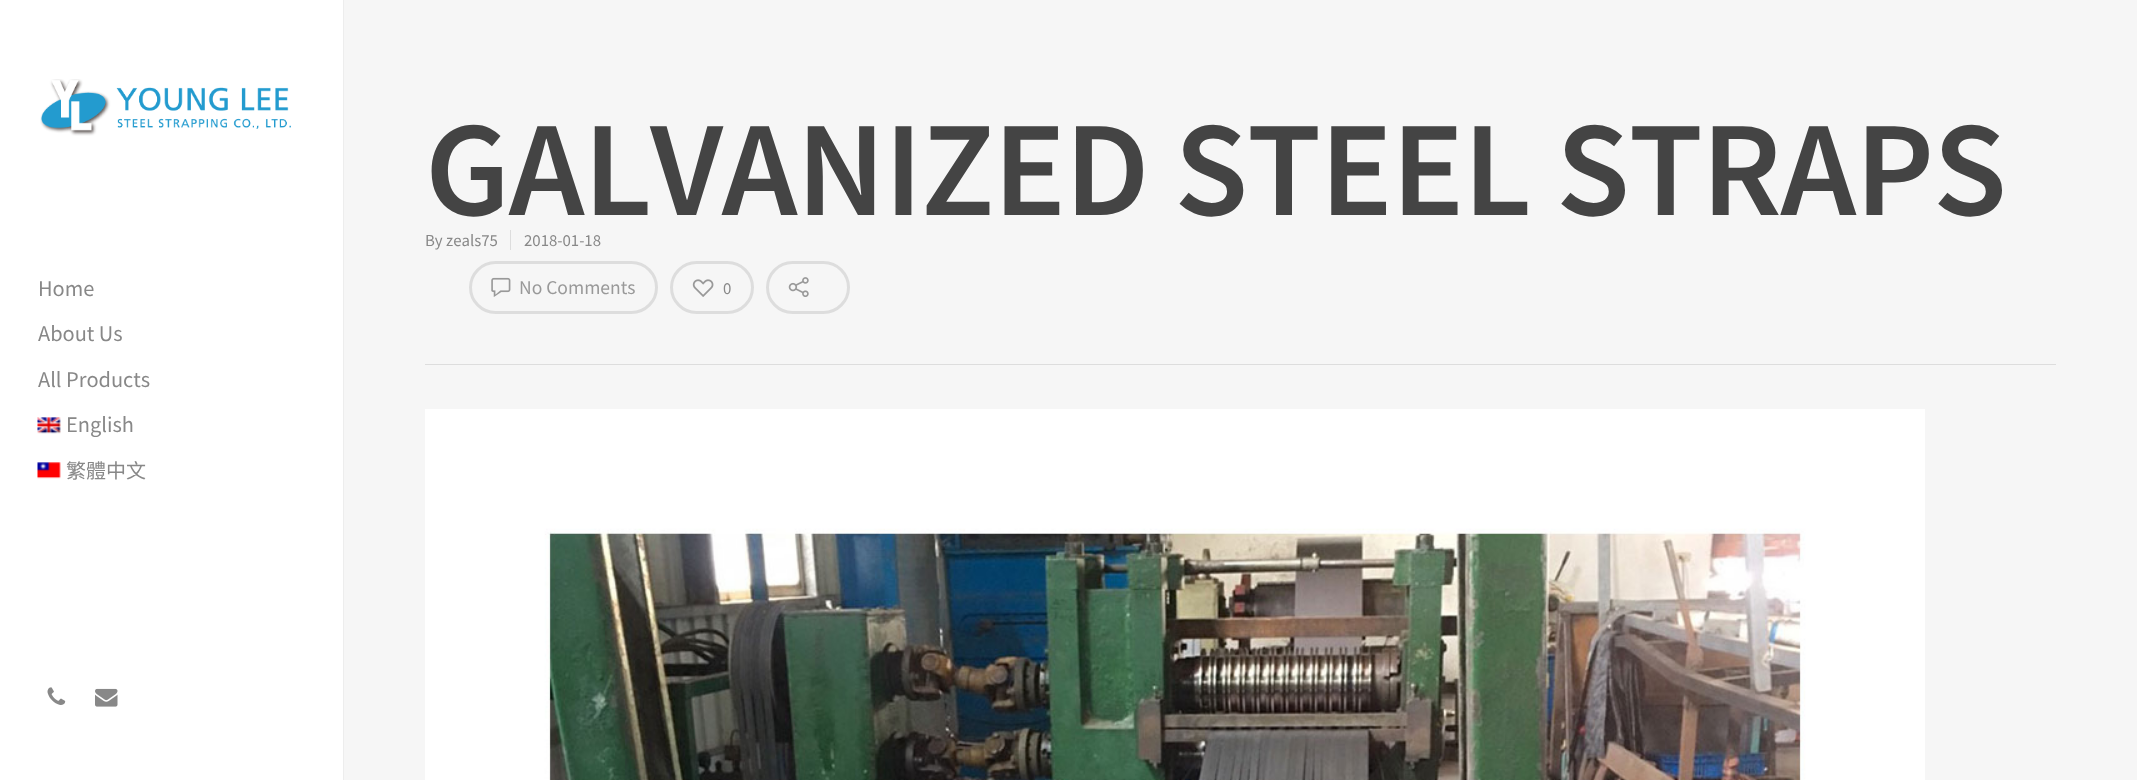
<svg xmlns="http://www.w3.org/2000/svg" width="2137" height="780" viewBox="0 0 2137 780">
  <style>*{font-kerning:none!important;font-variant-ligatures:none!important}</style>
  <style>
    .t1 { font: 600 120px Noto Sans TC; letter-spacing: -1.25px; fill: #444; }
    .t2 { font: 15px Noto Sans TC; fill: #888; }
    .t3 { font: 17.5px Noto Sans TC; fill: #999; }
    .t4 { font: 20px Noto Sans TC; fill: #888; }
  </style>
  <rect width="100%" height="100%" fill="#f6f6f6"/>
  <rect x="425" y="364" width="1631" height="1" fill="#ddd"/>
  <text x="425" y="215" class="t1">GALVANIZED STEEL</text>
  <text x="1556" y="215" class="t1">STRAPS</text>
  <text x="425" y="246" class="t2">By zeals75</text>
  <rect x="510" y="230" width="1" height="20" fill="#ddd"/>
  <text x="524" y="246" class="t2">2018-01-18</text>
  <rect x="470.5" y="262.5" width="186" height="50" rx="25" fill="none" stroke="#ddd" stroke-width="3"/>
  <image x="491" y="277" width="20" height="20" href="images/1.png"/>
  <text x="519" y="294" class="t3">No Comments</text>
  <rect x="671.5" y="262.5" width="81" height="50" rx="25" fill="none" stroke="#ddd" stroke-width="3"/>
  <image x="692" y="279" width="22" height="18" href="images/2.png"/>
  <text x="723" y="294" class="t2">0</text>
  <rect x="767.5" y="262.5" width="81" height="50" rx="25" fill="none" stroke="#ddd" stroke-width="3"/>
  <image x="788" y="277" width="21" height="20" href="images/3.png"/>
  <image x="425" y="409" width="1500" height="371" href="images/4.png"/>
  <rect x="0" y="0" width="343" height="780" fill="#fff"/>
  <rect x="343" y="0" width="1" height="780" fill="#ededed"/>
  <image x="40" y="79" width="251" height="57" href="images/5.png"/>
  <text x="38" y="296" class="t4">Home</text>
  <text x="38" y="341" class="t4">About Us</text>
  <text x="38" y="387" class="t4">All Products</text>
  <image x="37" y="417" width="24" height="17" href="images/6.png"/>
  <text x="66" y="432" class="t4">English</text>
  <image x="37" y="462" width="24" height="17" href="images/7.png"/>
  <text x="66" y="478" class="t4">繁體中文</text>
  <image x="47" y="687" width="19" height="18" href="images/8.png"/>
  <image x="95" y="688" width="23" height="19" href="images/9.png"/>
</svg>
